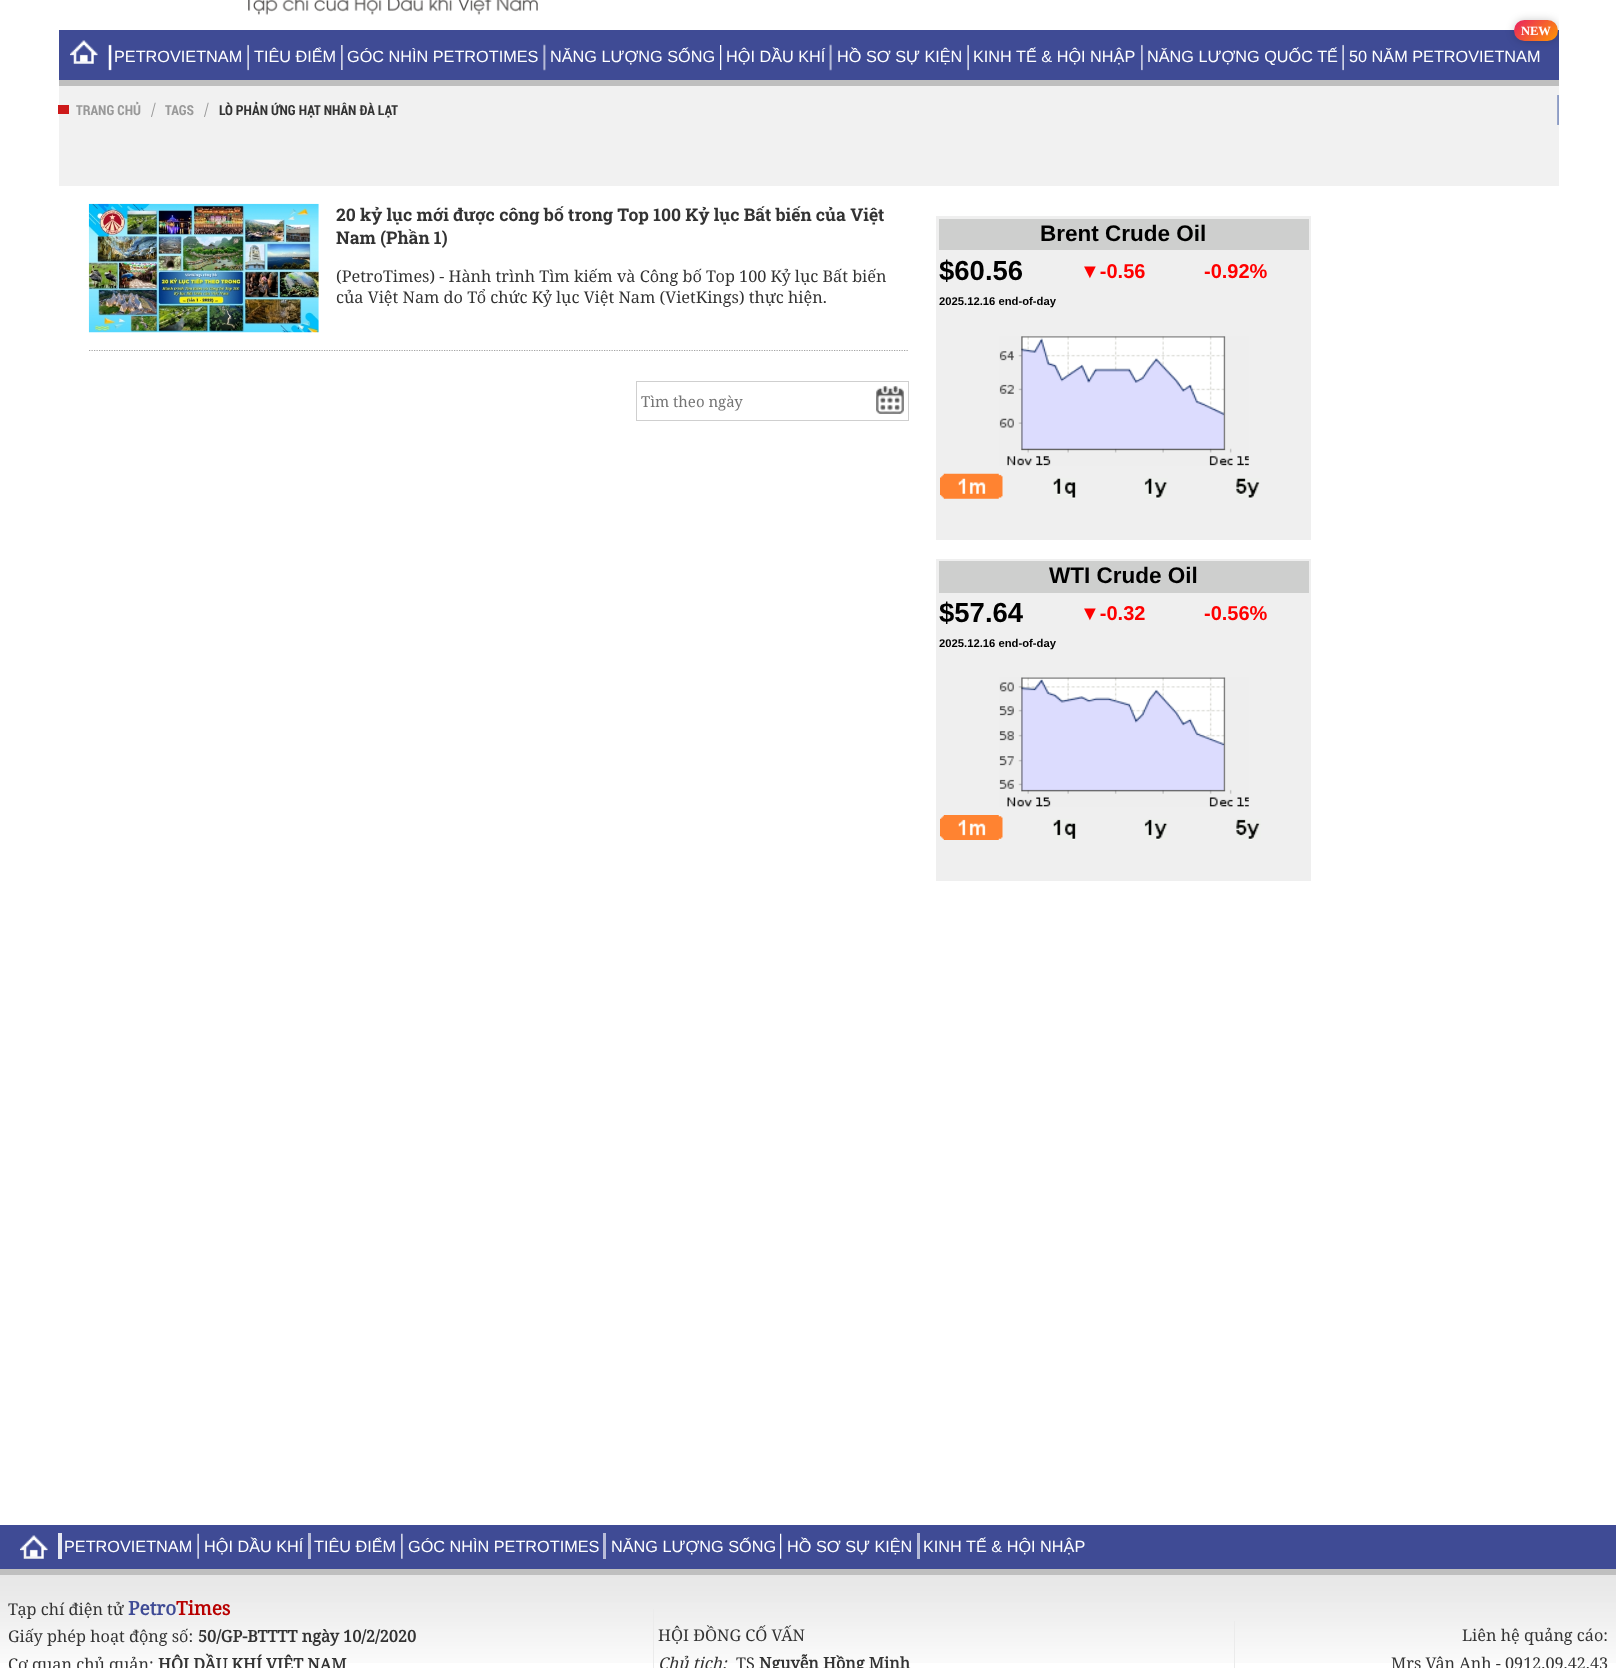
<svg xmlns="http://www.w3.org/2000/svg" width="1616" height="1668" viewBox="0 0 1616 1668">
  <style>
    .t1 { font: 16.25px Liberation Sans; fill: #fff; }
    .t2 { font: bold 12.5px Liberation Serif; fill: #fff; }
    .t3 { font: bold 13.75px Roboto Condensed; fill: #999; }
    .t4 { font: 16.25px Noto Serif; fill: #999; }
    .t5 { font: bold 13.75px Roboto Condensed; fill: #333; }
    .t6 { font: bold 17.5px Roboto Slab; fill: #333; }
    .t7 { font: 16.25px Noto Serif; fill: #333; }
    .t8 { font: 15px Noto Serif; fill: #757575; }
    .t9 { font: bold 22.5px Liberation Sans; fill: #000; }
    .t10 { font: bold 27.5px Liberation Sans; fill: #000; }
    .t11 { font: bold 20px Liberation Sans; fill: #f00; }
    .t12 { font: bold 11.25px Liberation Sans; fill: #000; }
    .t13 { font: bold 19px Noto Serif; fill: #3f4b95; }
    .t14 { font: bold 19px Noto Serif; fill: #b80000; }
    .t15 { font: bold 16.25px Noto Serif; fill: #333; }
    .t16 { font: italic 16.25px Noto Serif; fill: #333; }
  </style>
  <defs>
    <clipPath id="clip1"><rect x="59" y="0" width="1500" height="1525"/></clipPath>
    <linearGradient id="g1" gradientUnits="userSpaceOnUse" x1="1519" y1="14" x2="1552" y2="47"><stop offset="0" stop-color="#e91e63"/><stop offset="1" stop-color="#ff9800"/></linearGradient>
  </defs>
  <rect width="100%" height="100%" fill="#fff"/>
  <image x="248" y="0" width="290" height="15" href="images/1.png"/>
  <rect x="59" y="30" width="1500" height="50" fill="#3f4b95"/>
  <rect x="59" y="80" width="1500" height="6" fill="#bfbfbf"/>
  <image x="70" y="40" width="28" height="24" href="images/2.png"/>
  <image x="108" y="44" width="4" height="27" href="images/3.png"/>
  <text x="114" y="62" class="t1">PETROVIETNAM</text>
  <image x="247" y="44" width="2" height="27" href="images/4.png"/>
  <text x="254" y="62" class="t1">TIÊU ĐIỂM</text>
  <image x="341" y="45" width="2" height="25" href="images/5.png"/>
  <text x="347" y="62" class="t1">GÓC NHÌN PETROTIMES</text>
  <image x="543" y="44" width="3" height="27" href="images/6.png"/>
  <text x="550" y="62" class="t1">NĂNG LƯỢNG SỐNG</text>
  <image x="720" y="45" width="2" height="25" href="images/7.png"/>
  <text x="726" y="62" class="t1">HỘI DẦU KHÍ</text>
  <image x="829" y="44" width="3" height="27" href="images/8.png"/>
  <text x="837" y="62" class="t1">HỒ SƠ SỰ KIỆN</text>
  <image x="967" y="44" width="2" height="27" href="images/9.png"/>
  <text x="973" y="62" class="t1">KINH TẾ &amp; HỘI NHẬP</text>
  <image x="1141" y="44" width="2" height="27" href="images/10.png"/>
  <text x="1147" y="62" class="t1">NĂNG LƯỢNG QUỐC TẾ</text>
  <image x="1342" y="44" width="2" height="27" href="images/4.png"/>
  <g clip-path="url(#clip1)">
    <rect x="1514" y="20" width="44" height="21" rx="10.5" fill="#00000033" filter="blur(4px)"/>
  </g>
  <rect x="1514" y="20" width="44" height="21" rx="10.5" fill="url(#g1)"/>
  <text x="1521" y="35" class="t2">NEW</text>
  <text x="1349" y="62" class="t1">50 NĂM PETROVIETNAM</text>
  <rect x="59" y="86" width="1500" height="100" fill="#f1f1f1"/>
  <rect x="58" y="105" width="11" height="9" fill="#cd191a"/>
  <text x="76" y="115" class="t3">TRANG CHỦ</text>
  <text x="151" y="115" class="t4">/</text>
  <text x="165" y="115" class="t3">TAGS</text>
  <text x="204" y="115" class="t4">/</text>
  <text x="219" y="115" class="t5">LÒ PHẢN ỨNG HẠT NHÂN ĐÀ LẠT</text>
  <image x="1557" y="95" width="2" height="30" href="images/11.png"/>
  <path d="M89 350.5H909" fill="none" stroke="#a4a4a4" stroke-width="1.2" stroke-dasharray="1.25 1.25"/>
  <image x="88" y="203" width="231" height="130" href="images/12.png"/>
  <text x="336" y="221" class="t6">20 kỷ lục mới được công bố trong Top 100 Kỷ lục Bất biến của Việt</text>
  <text x="336" y="244" class="t6">Nam (Phần 1)</text>
  <text x="336" y="282" class="t7">(PetroTimes) - Hành trình Tìm kiếm và Công bố Top 100 Kỷ lục Bất biến</text>
  <text x="336" y="303" class="t7">của Việt Nam do Tổ chức Kỷ lục Việt Nam (VietKings) thực hiện.</text>
  <rect x="636.5" y="381.5" width="272" height="39" fill="none" stroke="#cfcfcf"/>
  <text x="641" y="407" class="t8">Tìm theo ngày</text>
  <image x="876" y="386" width="28" height="28" href="images/13.png"/>
  <rect x="936" y="216" width="375" height="324" fill="#efefef"/>
  <rect x="939" y="219" width="370" height="31" fill="#cecfce"/>
  <text x="1040" y="241" class="t9">Brent Crude Oil</text>
  <text x="939" y="280" class="t10">$60.56</text>
  <text x="1080" y="278" class="t11">▼-0.56</text>
  <text x="1204" y="278" class="t11">-0.92%</text>
  <text x="939" y="305" class="t12">2025.12.16 end-of-day</text>
  <image x="999" y="336" width="250" height="130" href="images/14.png"/>
  <image x="940" y="473" width="63" height="26" href="images/15.png"/>
  <image x="1053" y="478" width="23" height="21" href="images/16.png"/>
  <image x="1144" y="478" width="24" height="21" href="images/17.png"/>
  <image x="1236" y="478" width="24" height="21" href="images/18.png"/>
  <rect x="936" y="559" width="375" height="322" fill="#efefef"/>
  <rect x="939" y="561" width="370" height="32" fill="#cecfce"/>
  <text x="1049" y="583" class="t9">WTI Crude Oil</text>
  <text x="939" y="622" class="t10">$57.64</text>
  <text x="1080" y="620" class="t11">▼-0.32</text>
  <text x="1204" y="620" class="t11">-0.56%</text>
  <text x="939" y="647" class="t12">2025.12.16 end-of-day</text>
  <image x="999" y="677" width="250" height="130" href="images/19.png"/>
  <image x="940" y="815" width="63" height="25" href="images/20.png"/>
  <image x="1053" y="819" width="23" height="21" href="images/21.png"/>
  <image x="1144" y="819" width="24" height="21" href="images/22.png"/>
  <image x="1236" y="819" width="25" height="21" href="images/23.png"/>
  <rect x="0" y="1525" width="1616" height="44" fill="#3f4b95"/>
  <rect x="0" y="1569" width="1616" height="6" fill="#bfbfbf"/>
  <image x="20" y="1535" width="28" height="24" href="images/24.png"/>
  <rect x="58" y="1533" width="4" height="26" fill="#e6e8f1"/>
  <text x="64" y="1552" class="t1">PETROVIETNAM</text>
  <image x="197" y="1533" width="2" height="26" href="images/25.png"/>
  <text x="204" y="1552" class="t1">HỘI DẦU KHÍ</text>
  <rect x="308" y="1533" width="3" height="26" fill="#b8bcd8"/>
  <text x="314" y="1552" class="t1">TIÊU ĐIỂM</text>
  <image x="401" y="1533" width="2" height="26" href="images/26.png"/>
  <text x="408" y="1552" class="t1">GÓC NHÌN PETROTIMES</text>
  <rect x="603" y="1533" width="3" height="26" fill="#b8bcd8"/>
  <text x="611" y="1552" class="t1">NĂNG LƯỢNG SỐNG</text>
  <image x="780" y="1533" width="2" height="26" href="images/27.png"/>
  <text x="787" y="1552" class="t1">HỒ SƠ SỰ KIỆN</text>
  <rect x="917" y="1533" width="3" height="26" fill="#b6bbd7"/>
  <text x="923" y="1552" class="t1">KINH TẾ &amp; HỘI NHẬP</text>
  <image x="0" y="1575" width="1616" height="88" href="images/28.png"/>
  <rect x="653" y="1609" width="1" height="59" fill="#ebebeb"/>
  <text x="8" y="1615" class="t7">Tạp chí điện tử</text>
  <text x="128" y="1615" class="t13">Petro</text>
  <text x="176" y="1615" class="t14">Times</text>
  <text x="8" y="1642" class="t7">Giấy phép hoạt động số:</text>
  <text x="198" y="1642" class="t15">50/GP-BTTTT ngày 10/2/2020</text>
  <text x="8" y="1670" class="t7">Cơ quan chủ quản:</text>
  <text x="158" y="1670" class="t15">HỘI DẦU KHÍ VIỆT NAM</text>
  <rect x="1234" y="1621" width="1" height="47" fill="#ebebeb"/>
  <text x="658" y="1641" class="t7">HỘI ĐỒNG CỐ VẤN</text>
  <text x="658" y="1669" class="t16">Chủ tịch:</text>
  <text x="736" y="1669" class="t7">TS</text>
  <text x="759" y="1669" class="t15">Nguyễn Hồng Minh</text>
  <text x="1462" y="1641" class="t7">Liên hệ quảng cáo:</text>
  <text x="1391" y="1669" class="t7">Mrs Vân Anh - 0912.09.42.43</text>
</svg>
